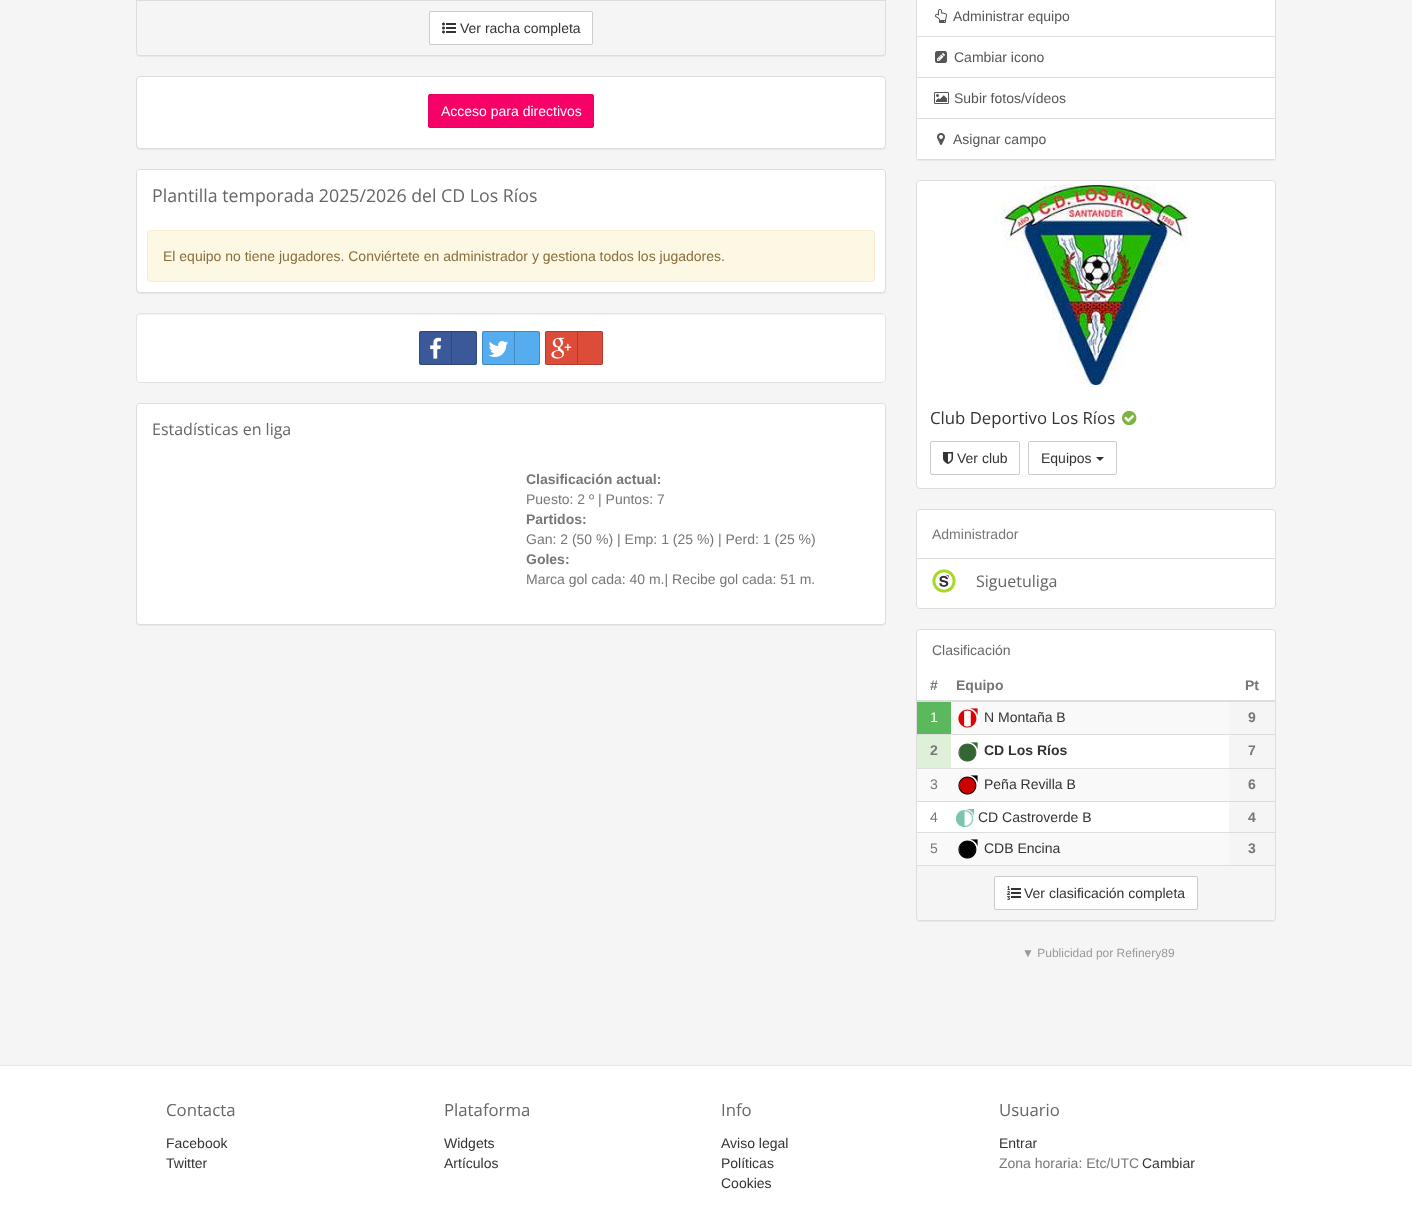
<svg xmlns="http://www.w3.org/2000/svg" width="1412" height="1217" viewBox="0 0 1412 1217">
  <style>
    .t1 { font: 14px Liberation Sans; fill: #333; }
    .t2 { font: 14px Liberation Sans; fill: #fff; }
    .t3 { font: 17.75px Open Sans; fill: #666; }
    .t4 { font: 14px Liberation Sans; fill: #8a6d3b; }
    .t5 { font: 16px Open Sans; fill: #666; }
    .t6 { font: bold 14px Liberation Sans; fill: #777; }
    .t7 { font: 14px Liberation Sans; fill: #777; }
    .t8 { font: 14px Liberation Sans; fill: #555; }
    .t9 { font: 16.75px Open Sans; fill: #333; }
    .t10 { font: 14px Liberation Sans; fill: #666; }
    .t11 { font: bold 14px Liberation Sans; fill: #333; }
    .t12 { font: 12px Liberation Sans; fill: #999; }
    .t13 { font: 16.75px Open Sans; fill: #666; }
  </style>
  <rect width="100%" height="100%" fill="#f5f5f5"/>
  <rect x="136" y="-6" width="750" height="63" rx="4" fill="#0000000d" filter="blur(0.5px)"/>
  <rect x="136.5" y="-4.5" width="749" height="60" rx="3.5" fill="none" stroke="#ddd"/>
  <path d="M137 0H885V52C885 53.5 883.5 55 882 55H140C138.5 55 137 53.5 137 52Z" fill="#f5f5f5"/>
  <rect x="137" y="0" width="748" height="1" fill="#ddd"/>
  <rect x="429.5" y="11.5" width="163" height="33" rx="1.5" fill="#fff" stroke="#ccc"/>
  <image x="442" y="22" width="14" height="12" href="images/1.png"/>
  <text x="460" y="33" class="t1">Ver racha completa</text>
  <rect x="136" y="77" width="750" height="73" rx="4" fill="#0000000d" filter="blur(0.5px)"/>
  <rect x="136.5" y="76.5" width="749" height="72" rx="3.5" fill="#fff" stroke="#ddd"/>
  <rect x="428.5" y="94.5" width="165" height="33" rx="1.5" fill="#f70067" stroke="#e30360"/>
  <text x="441" y="116" class="t2">Acceso para directivos</text>
  <rect x="136" y="170" width="750" height="124" rx="4" fill="#0000000d" filter="blur(0.5px)"/>
  <rect x="136.5" y="169.5" width="749" height="123" rx="3.5" fill="#fff" stroke="#ddd"/>
  <path d="M140 170H882C883.5 170 885 171.5 885 173V220H137V173C137 171.5 138.5 170 140 170Z" fill="#fff"/>
  <text x="152" y="202" class="t3">Plantilla temporada 2025/2026 del CD Los Ríos</text>
  <rect x="147.5" y="230.5" width="727" height="51" rx="3.5" fill="#fcf8e3" stroke="#faebcc"/>
  <text x="163" y="261" class="t4">El equipo no tiene jugadores. Conviértete en administrador y gestiona todos los jugadores.</text>
  <rect x="136" y="313" width="750" height="70" rx="4" fill="#fff"/>
  <path d="M140 315H882C884 315 885 316 885 318C885 316 884 314 882 314H140C138 314 137 316 137 318C137 316 138 315 140 315Z" fill="#f2f2f2"/>
  <rect x="136.5" y="313.5" width="749" height="69" rx="3.5" fill="none" stroke="#e3e3e3"/>
  <rect x="419" y="331" width="58" height="34" rx="2" fill="#3b5998"/>
  <rect x="419.5" y="331.5" width="57" height="33" rx="1.5" fill="none" stroke="#00000033"/>
  <rect x="451" y="332" width="1" height="32" fill="#2f477a"/>
  <image x="430" y="337" width="11" height="22" href="images/2.png"/>
  <rect x="482" y="331" width="58" height="34" rx="2" fill="#55acee"/>
  <rect x="482.5" y="331.5" width="57" height="33" rx="1.5" fill="none" stroke="#00000033"/>
  <rect x="514" y="332" width="1" height="32" fill="#448abe"/>
  <image x="488" y="341" width="20" height="16" href="images/3.png"/>
  <rect x="545" y="331" width="58" height="34" rx="2" fill="#dd4b39"/>
  <rect x="545.5" y="331.5" width="57" height="33" rx="1.5" fill="none" stroke="#00000033"/>
  <rect x="577" y="332" width="1" height="32" fill="#b13c2e"/>
  <image x="551" y="337" width="21" height="22" href="images/4.png"/>
  <rect x="136" y="404" width="750" height="222" rx="4" fill="#0000000d" filter="blur(0.5px)"/>
  <rect x="136.5" y="403.5" width="749" height="221" rx="3.5" fill="#fff" stroke="#ddd"/>
  <path d="M140 404H882C883.5 404 885 405.5 885 407V454H137V407C137 405.5 138.5 404 140 404Z" fill="#fff"/>
  <text x="152" y="435" class="t5">Estadísticas en liga</text>
  <text x="526" y="484" class="t6">Clasificación actual:</text>
  <text x="526" y="504" class="t7">Puesto: 2 º | Puntos: 7</text>
  <text x="526" y="524" class="t6">Partidos:</text>
  <text x="526" y="544" class="t7">Gan: 2 (50 %) | Emp: 1 (25 %) | Perd: 1 (25 %)</text>
  <text x="526" y="564" class="t6">Goles:</text>
  <text x="526" y="584" class="t7">Marca gol cada: 40 m.| Recibe gol cada: 51 m.</text>
  <rect x="916" y="-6" width="360" height="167" rx="4" fill="#0000000d" filter="blur(0.5px)"/>
  <rect x="916.5" y="-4.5" width="359" height="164" rx="3.5" fill="#fff" stroke="#ddd"/>
  <rect x="917" y="36" width="358" height="1" fill="#ddd"/>
  <image x="935" y="9" width="12" height="14" href="images/5.png"/>
  <text x="953" y="21" class="t8">Administrar equipo</text>
  <rect x="917" y="77" width="358" height="1" fill="#ddd"/>
  <image x="935" y="51" width="12" height="12" href="images/6.png"/>
  <text x="954" y="62" class="t8">Cambiar icono</text>
  <rect x="917" y="118" width="358" height="1" fill="#ddd"/>
  <image x="934" y="92" width="15" height="12" href="images/7.png"/>
  <text x="954" y="103" class="t8">Subir fotos/vídeos</text>
  <rect x="917" y="156" width="358" height="3" fill="#fff"/>
  <rect x="917" y="159" width="358" height="1" fill="#ddd"/>
  <image x="937" y="133" width="8" height="12" href="images/8.png"/>
  <text x="953" y="144" class="t8">Asignar campo</text>
  <rect x="916.5" y="180.5" width="359" height="308" rx="3.5" fill="#fff" stroke="#ddd"/>
  <image x="996" y="185" width="193" height="200" href="images/9.png"/>
  <text x="930" y="424" class="t9">Club Deportivo Los Ríos</text>
  <image x="1122" y="410" width="15" height="16" href="images/10.png"/>
  <rect x="930.5" y="441.5" width="89" height="33" rx="1.5" fill="none" stroke="#ccc"/>
  <image x="943" y="452" width="10" height="12" href="images/11.png"/>
  <text x="957" y="463" class="t1">Ver club</text>
  <rect x="1028.5" y="441.5" width="88" height="33" rx="1.5" fill="none" stroke="#ccc"/>
  <text x="1041" y="463" class="t1">Equipos</text>
  <path d="M1096 457H1104L1100 461Z" fill="#333"/>
  <path d="M920 509.5H1272C1274 509.5 1275.5 511 1275.5 513V558.5H916.5V513C916.5 511 918 509.5 920 509.5Z" fill="#fff" stroke="#ddd"/>
  <text x="932" y="539" class="t7">Administrador</text>
  <path d="M916.5 558.5H1275.5V605C1275.5 607 1274 608.5 1272 608.5H920C918 608.5 916.5 607 916.5 605Z" fill="#fff" stroke="#ddd"/>
  <image x="932" y="569" width="24" height="24" href="images/12.png"/>
  <text x="976" y="587" class="t5">Siguetuliga</text>
  <rect x="916" y="630" width="360" height="292" rx="4" fill="#0000000d" filter="blur(0.5px)"/>
  <rect x="916.5" y="629.5" width="359" height="291" rx="3.5" fill="#fff" stroke="#ddd"/>
  <path d="M920 630H1272C1273.5 630 1275 631.5 1275 633V670H917V633C917 631.5 918.5 630 920 630Z" fill="#fff"/>
  <text x="932" y="655" class="t10">Clasificación</text>
  <text x="930" y="690" class="t6">#</text>
  <text x="956" y="690" class="t6">Equipo</text>
  <rect x="917" y="700" width="358" height="2" fill="#ddd"/>
  <text x="1245" y="690" class="t6">Pt</text>
  <rect x="951" y="702" width="278" height="32" fill="#f9f9f9"/>
  <rect x="917" y="702" width="34" height="32" fill="#5cb85c"/>
  <text x="930" y="722" class="t2">1</text>
  <path d="M967.5 710C978.5 710 978.5 727 967.5 727C956.5 727 956.5 710 967.5 710Z" fill="#fff"/>
  <image x="958" y="708" width="20" height="20" href="images/13.png"/>
  <text x="984" y="722" class="t1">N Montaña B</text>
  <rect x="1229" y="702" width="46" height="32" fill="#f5f5f5"/>
  <text x="1248" y="722" class="t6">9</text>
  <rect x="917" y="735" width="34" height="33" fill="#dff0d8"/>
  <text x="930" y="755" class="t6">2</text>
  <path d="M967.5 744C978.5 744 978.5 761 967.5 761C956.5 761 956.5 744 967.5 744Z" fill="#363"/>
  <image x="958" y="742" width="20" height="20" href="images/14.png"/>
  <text x="984" y="755" class="t11">CD Los Ríos</text>
  <rect x="1229" y="735" width="46" height="33" fill="#f5f5f5"/>
  <rect x="917" y="734" width="358" height="1" fill="#ddd"/>
  <text x="1248" y="755" class="t6">7</text>
  <rect x="917" y="769" width="312" height="32" fill="#f9f9f9"/>
  <text x="930" y="789" class="t7">3</text>
  <path d="M967.5 777C978.5 777 978.5 794 967.5 794C956.5 794 956.5 777 967.5 777Z" fill="#c00"/>
  <image x="958" y="775" width="20" height="20" href="images/15.png"/>
  <text x="984" y="789" class="t1">Peña Revilla B</text>
  <rect x="1229" y="769" width="46" height="32" fill="#f5f5f5"/>
  <rect x="917" y="768" width="358" height="1" fill="#ddd"/>
  <text x="1248" y="789" class="t6">6</text>
  <text x="930" y="822" class="t7">4</text>
  <image x="956" y="809" width="18" height="18" href="images/16.png"/>
  <text x="978" y="822" class="t1">CD Castroverde B</text>
  <rect x="1229" y="802" width="46" height="30" fill="#f5f5f5"/>
  <rect x="917" y="801" width="358" height="1" fill="#ddd"/>
  <text x="1248" y="822" class="t6">4</text>
  <rect x="917" y="833" width="312" height="32" fill="#f9f9f9"/>
  <text x="930" y="853" class="t7">5</text>
  <path d="M967.5 841C978.5 841 978.5 858 967.5 858C956.5 858 956.5 841 967.5 841Z" fill="#000"/>
  <image x="958" y="839" width="20" height="20" href="images/17.png"/>
  <text x="984" y="853" class="t1">CDB Encina</text>
  <rect x="1229" y="833" width="46" height="32" fill="#f5f5f5"/>
  <rect x="917" y="832" width="358" height="1" fill="#ddd"/>
  <text x="1248" y="853" class="t6">3</text>
  <path d="M917 865H1275V917C1275 918.5 1273.5 920 1272 920H920C918.5 920 917 918.5 917 917Z" fill="#f5f5f5"/>
  <rect x="917" y="865" width="358" height="1" fill="#ddd"/>
  <rect x="994.5" y="876.5" width="203" height="33" rx="1.5" fill="#fff" stroke="#ccc"/>
  <image x="1007" y="886" width="14" height="14" href="images/18.png"/>
  <text x="1024" y="898" class="t1">Ver clasificación completa</text>
  <text x="1022" y="957" class="t12">▼ Publicidad por Refinery89</text>
  <rect x="0" y="1066" width="1412" height="151" fill="#fff"/>
  <rect x="0" y="1065" width="1412" height="1" fill="#e7e7e7"/>
  <text x="166" y="1116" class="t13">Contacta</text>
  <text x="166" y="1148" class="t1">Facebook</text>
  <text x="166" y="1168" class="t1">Twitter</text>
  <text x="444" y="1116" class="t13">Plataforma</text>
  <text x="444" y="1148" class="t1">Widgets</text>
  <text x="444" y="1168" class="t1">Artículos</text>
  <text x="721" y="1116" class="t13">Info</text>
  <text x="721" y="1148" class="t1">Aviso legal</text>
  <text x="721" y="1168" class="t1">Políticas</text>
  <text x="721" y="1188" class="t1">Cookies</text>
  <text x="999" y="1116" class="t13">Usuario</text>
  <text x="999" y="1148" class="t1">Entrar</text>
  <text x="999" y="1168" class="t7">Zona horaria: Etc/UTC</text>
  <text x="1142" y="1168" class="t1">Cambiar</text>
</svg>
